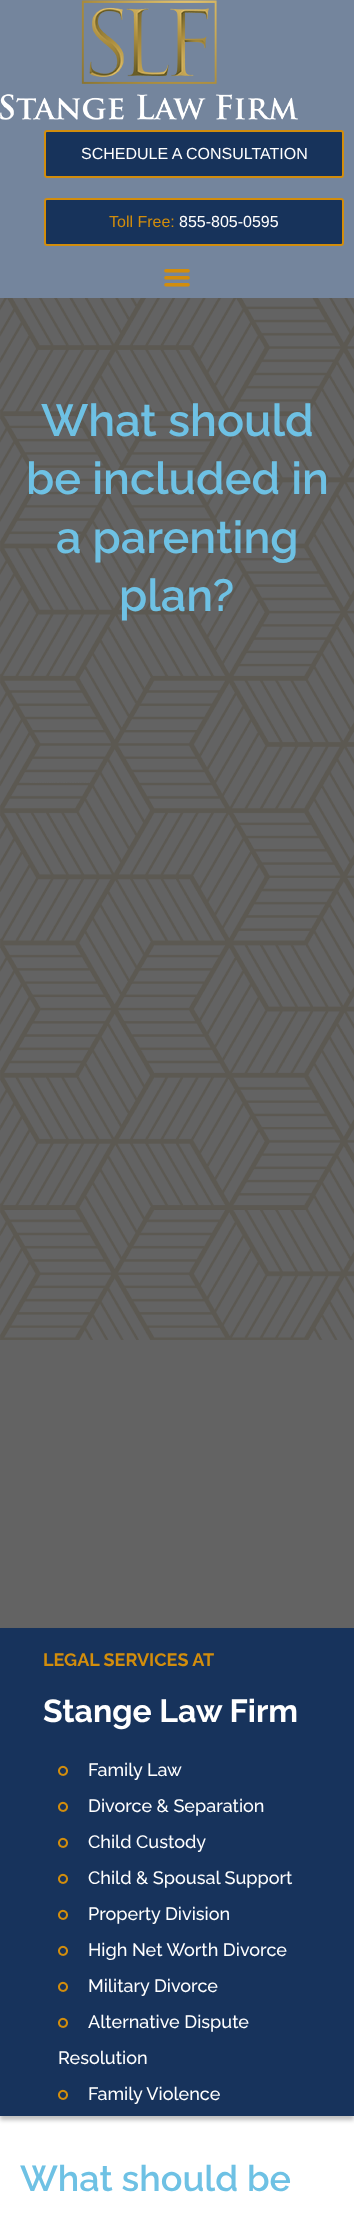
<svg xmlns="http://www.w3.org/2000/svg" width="354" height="2216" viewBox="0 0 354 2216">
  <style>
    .t1 { font: 16px Liberation Sans; fill: #fff; }
    .t2 { font: 16px Liberation Sans; fill: #d28d0c; }
    .t3 { font: 600 45px Raleway; fill: #6ec1e4; }
    .t4 { font: bold 18px Raleway; fill: #d28d0c; }
    .t5 { font: bold 32px Raleway; fill: #fff; }
    .t6 { font: 500 18px Raleway; fill: #fff; }
    .t7 { font: 600 36px Raleway; fill: #6ec1e4; }
  </style>
  <rect width="100%" height="100%" fill="#fff"/>
  <rect x="0" y="298" width="354" height="1330" fill="#636363"/>
  <rect x="0" y="0" width="354" height="298" fill="#74859d"/>
  <image x="0" y="0" width="298" height="120" href="images/1.png"/>
  <rect x="45" y="131" width="298" height="46" rx="2" fill="#17335b" stroke="#d28d0c" stroke-width="2"/>
  <text x="81" y="159" class="t1">SCHEDULE A CONSULTATION</text>
  <rect x="45" y="199" width="298" height="46" rx="2" fill="#17335b" stroke="#d28d0c" stroke-width="2"/>
  <text x="109" y="227" class="t2">Toll Free:</text>
  <text x="179" y="227" class="t1">855-805-0595</text>
  <image x="164" y="269" width="26" height="18" href="images/2.png"/>
  <image x="0" y="298" width="354" height="1042" href="images/3.png"/>
  <text x="41" y="436" class="t3">What should</text>
  <text x="26" y="494" class="t3">be included in</text>
  <text x="56" y="553" class="t3">a parenting</text>
  <text x="119" y="611" class="t3">plan?</text>
  <rect x="0" y="1632" width="354" height="488" fill="#00000040" filter="blur(2px)"/>
  <rect x="0" y="1628" width="354" height="488" fill="#17335c"/>
  <text x="43" y="1666" class="t4">LEGAL SERVICES AT</text>
  <text x="43" y="1722" class="t5">Stange Law Firm</text>
  <image x="58" y="1765" width="10" height="11" href="images/4.png"/>
  <text x="88" y="1776" class="t6">Family Law</text>
  <image x="58" y="1801" width="10" height="11" href="images/4.png"/>
  <text x="88" y="1812" class="t6">Divorce &amp; Separation</text>
  <image x="58" y="1837" width="10" height="11" href="images/4.png"/>
  <text x="88" y="1848" class="t6">Child Custody</text>
  <image x="58" y="1873" width="10" height="11" href="images/4.png"/>
  <text x="88" y="1884" class="t6">Child &amp; Spousal Support</text>
  <image x="58" y="1909" width="10" height="11" href="images/4.png"/>
  <text x="88" y="1920" class="t6">Property Division</text>
  <image x="58" y="1945" width="10" height="11" href="images/4.png"/>
  <text x="88" y="1956" class="t6">High Net Worth Divorce</text>
  <image x="58" y="1981" width="10" height="11" href="images/4.png"/>
  <text x="88" y="1992" class="t6">Military Divorce</text>
  <image x="58" y="2017" width="10" height="11" href="images/4.png"/>
  <text x="88" y="2028" class="t6">Alternative Dispute</text>
  <text x="58" y="2064" class="t6">Resolution</text>
  <image x="58" y="2089" width="10" height="11" href="images/4.png"/>
  <text x="88" y="2100" class="t6">Family Violence</text>
  <text x="20" y="2191" class="t7">What should be</text>
</svg>
